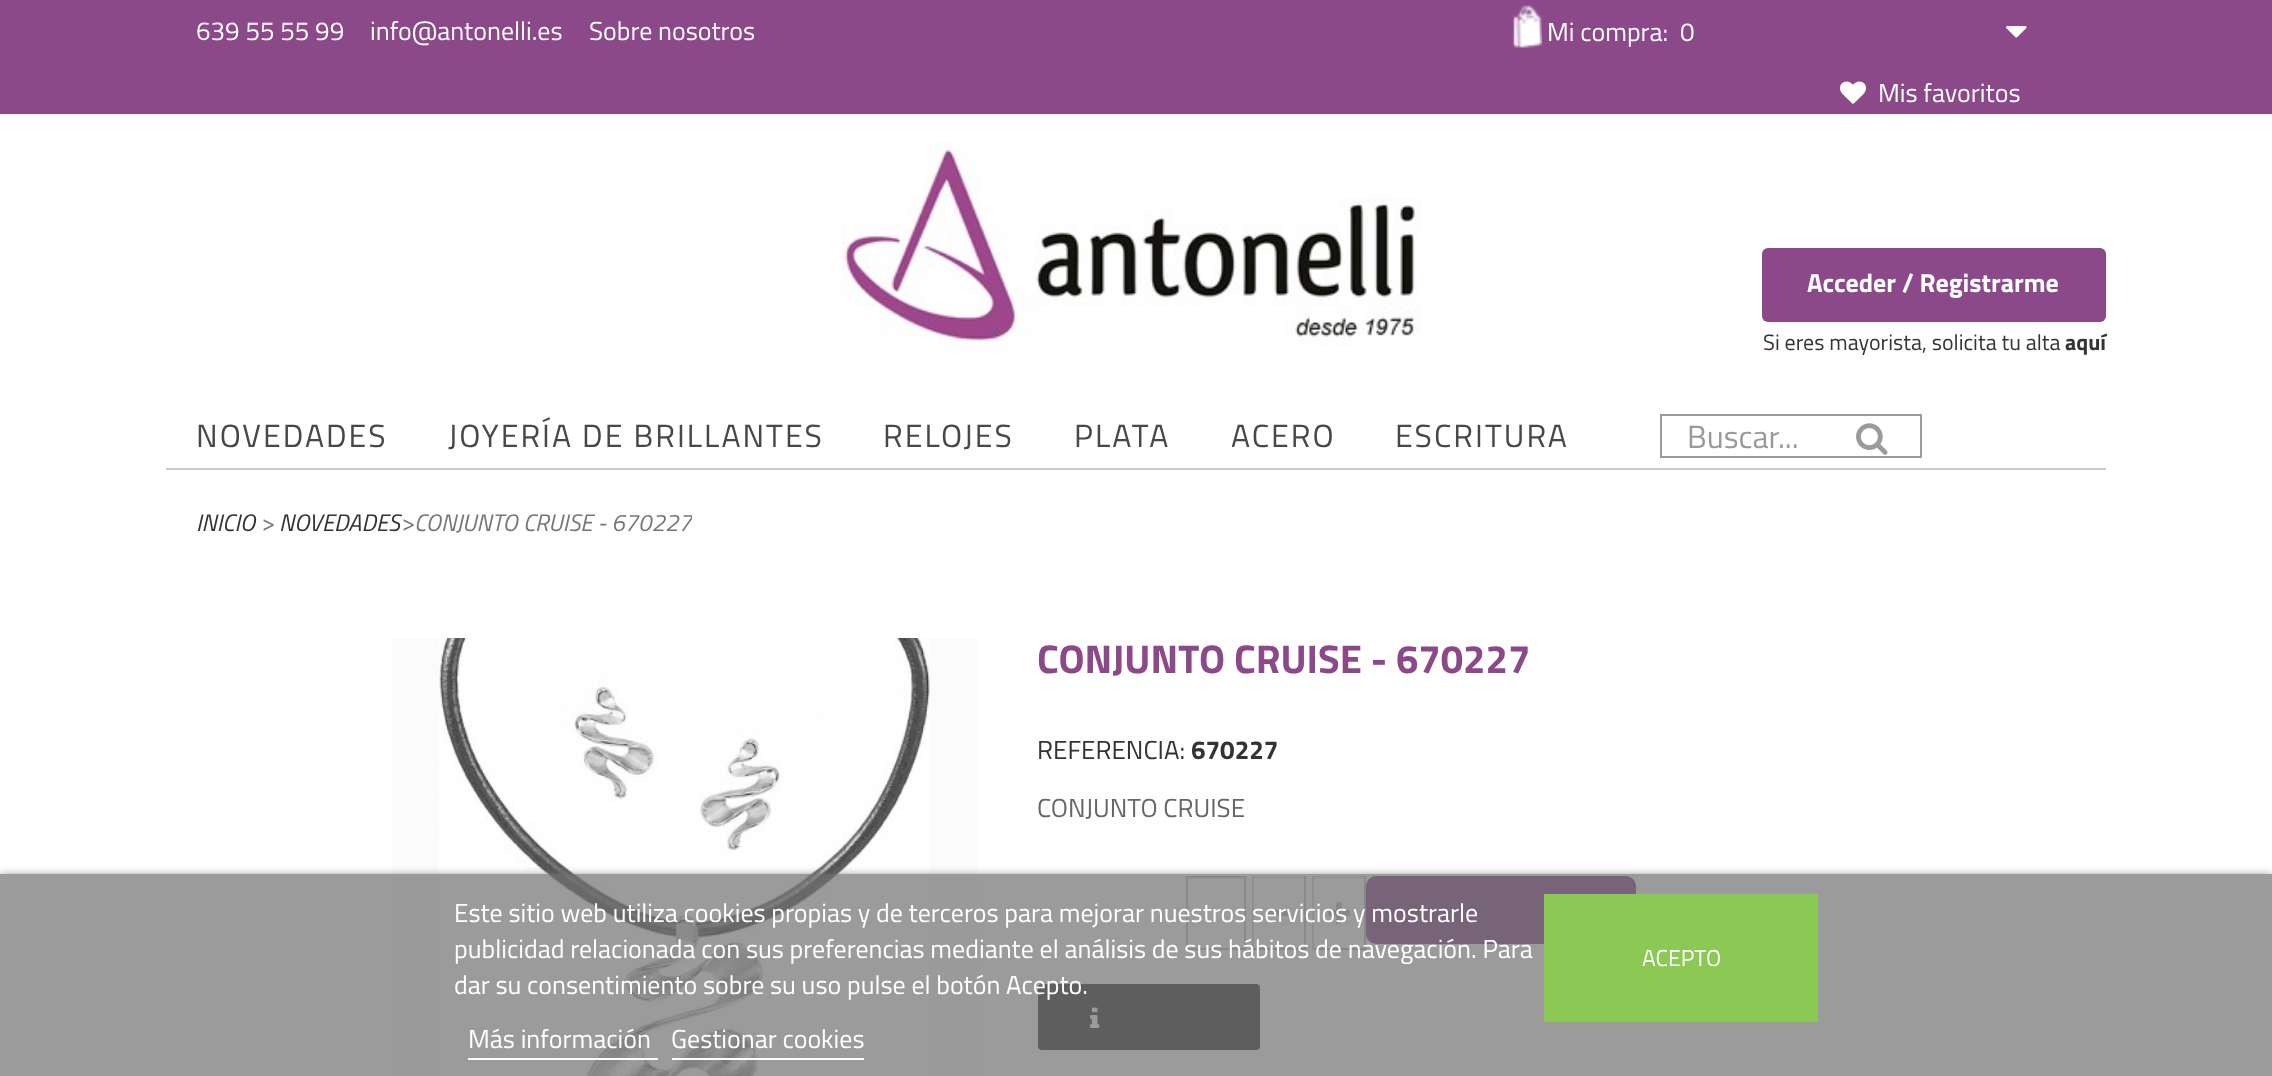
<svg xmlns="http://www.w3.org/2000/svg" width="2272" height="1076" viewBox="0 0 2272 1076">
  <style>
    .t1 { font: 26px Titillium Web; fill: #fff; }
    .t2 { font: bold 26px Titillium Web; fill: #fff; }
    .t3 { font: 22px Titillium Web; fill: #333; }
    .t4 { font: bold 22px Titillium Web; fill: #333; }
    .t5 { font: 32px Titillium Web; letter-spacing: 2px; fill: #484848; }
    .t6 { font: 32px Titillium Web; fill: #999; }
    .t7 { font: italic 24px Titillium Web; fill: #333; }
    .t8 { font: italic 24px Titillium Web; fill: #777; }
    .t9 { font: bold 40px Titillium Web; fill: #8b4989; }
    .t10 { font: 26px Titillium Web; fill: #333; }
    .t11 { font: bold 26px Titillium Web; fill: #333; }
    .t12 { font: 26px Titillium Web; fill: #666; }
    .t13 { font: 23px Titillium Web; fill: #fff; }
  </style>
  <defs>
    <clipPath id="clip1"><rect x="196" y="500" width="496" height="48"/></clipPath>
    <linearGradient id="g1" gradientUnits="userSpaceOnUse" x1="1279" y1="880" x2="1279" y2="926"><stop offset="0" stop-color="#fff"/><stop offset="1" stop-color="#fbfbfb"/></linearGradient>
    <linearGradient id="g2" gradientUnits="userSpaceOnUse" x1="1339" y1="880" x2="1339" y2="926"><stop offset="0" stop-color="#fff"/><stop offset="1" stop-color="#fbfbfb"/></linearGradient>
    <clipPath id="clip2"><rect x="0" y="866" width="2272" height="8"/></clipPath>
  </defs>
  <rect width="100%" height="100%" fill="#fff"/>
  <rect x="0" y="0" width="2272" height="114" fill="#8b4989"/>
  <text x="196" y="40" class="t1">639 55 55 99</text>
  <text x="370" y="40" class="t1">info@antonelli.es</text>
  <text x="589" y="40" class="t1">Sobre nosotros</text>
  <image x="1513" y="5" width="29" height="43" href="images/1.png"/>
  <text x="1547" y="41" class="t1">Mi compra:</text>
  <text x="1680" y="41" class="t1">0</text>
  <image x="2006" y="26" width="21" height="12" href="images/2.png"/>
  <image x="1840" y="81" width="26" height="23" href="images/3.png"/>
  <text x="1878" y="102" class="t1">Mis favoritos</text>
  <image x="842" y="141" width="579" height="211" href="images/4.png"/>
  <rect x="1762" y="248" width="344" height="74" rx="6" fill="#8b4989"/>
  <text x="1807" y="292" class="t2">Acceder / Registrarme</text>
  <text x="1763" y="350" class="t3">Si eres mayorista, solicita tu alta</text>
  <text x="2065" y="350" class="t4">aquí</text>
  <text x="196" y="447" class="t5">NOVEDADES</text>
  <text x="448" y="447" class="t5">JOYERÍA DE BRILLANTES</text>
  <text x="883" y="447" class="t5">RELOJES</text>
  <text x="1074" y="447" class="t5">PLATA</text>
  <text x="1231" y="447" class="t5">ACERO</text>
  <text x="1395" y="447" class="t5">ESCRITURA</text>
  <rect x="1661" y="415" width="260" height="42" fill="none" stroke="#9c9b9b" stroke-width="2"/>
  <text x="1687" y="448" class="t6">Buscar...</text>
  <image x="1856" y="423" width="32" height="32" href="images/5.png"/>
  <rect x="166" y="468" width="1940" height="2" fill="#ccc"/>
  <text x="196" y="531" class="t7">INICIO</text>
  <text x="260" y="531" class="t8">&gt;</text>
  <text x="279" y="531" class="t7">NOVEDADES</text>
  <text x="400" y="531" class="t8">&gt;</text>
  <g clip-path="url(#clip1)">
    <text x="414" y="531" class="t8">CONJUNTO CRUISE - 670227</text>
  </g>
  <rect x="392" y="638" width="586" height="438" fill="#fbfbfb"/>
  <image x="439" y="638" width="491" height="438" href="images/6.png"/>
  <text x="1037" y="673" class="t9">CONJUNTO CRUISE - 670227</text>
  <text x="1037" y="759" class="t10">REFERENCIA:</text>
  <text x="1191" y="759" class="t11">670227</text>
  <text x="1037" y="817" class="t12">CONJUNTO CRUISE</text>
  <rect x="1187" y="877" width="58" height="72" fill="none" stroke="#bdc2c9" stroke-width="2"/>
  <rect x="1252" y="876" width="54" height="2" fill="#dedcdc"/>
  <rect x="1304" y="876" width="2" height="74" fill="#c1bfbf"/>
  <rect x="1252" y="948" width="54" height="2" fill="#b5b4b4"/>
  <rect x="1252" y="876" width="2" height="74" fill="#dad8d8"/>
  <rect x="1256" y="909" width="46" height="17" fill="url(#g1)"/>
  <rect x="1268" y="910" width="22" height="6" fill="#c0c0c0"/>
  <rect x="1312" y="876" width="54" height="2" fill="#dedcdc"/>
  <rect x="1364" y="876" width="2" height="74" fill="#c1bfbf"/>
  <rect x="1312" y="948" width="54" height="2" fill="#b5b4b4"/>
  <rect x="1312" y="876" width="2" height="74" fill="#dad8d8"/>
  <rect x="1316" y="909" width="46" height="17" fill="url(#g2)"/>
  <image x="1328" y="902" width="22" height="22" href="images/7.png"/>
  <rect x="1366" y="876" width="270" height="68" rx="10" fill="#8b4989"/>
  <rect x="1038" y="984" width="222" height="66" rx="4" fill="#333"/>
  <image x="1090" y="1007" width="10" height="21" href="images/8.png"/>
  <g clip-path="url(#clip2)">
    <rect x="0" y="876" width="2272" height="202" fill="#707070" filter="blur(5px)"/>
  </g>
  <rect x="0" y="874" width="2272" height="202" fill="#707070b3"/>
  <text x="454" y="922" class="t1">Este sitio web utiliza cookies propias y de terceros para mejorar nuestros servicios y mostrarle</text>
  <text x="454" y="958" class="t1">publicidad relacionada con sus preferencias mediante el análisis de sus hábitos de navegación. Para</text>
  <text x="454" y="994" class="t1">dar su consentimiento sobre su uso pulse el botón Acepto.</text>
  <text x="468" y="1048" class="t1">Más información</text>
  <rect x="468" y="1058" width="190" height="2" fill="#fff"/>
  <text x="671" y="1048" class="t1">Gestionar cookies</text>
  <rect x="672" y="1058" width="192" height="2" fill="#fff"/>
  <rect x="1544" y="894" width="274" height="128" fill="#8bc954"/>
  <text x="1642" y="966" class="t13">ACEPTO</text>
</svg>
